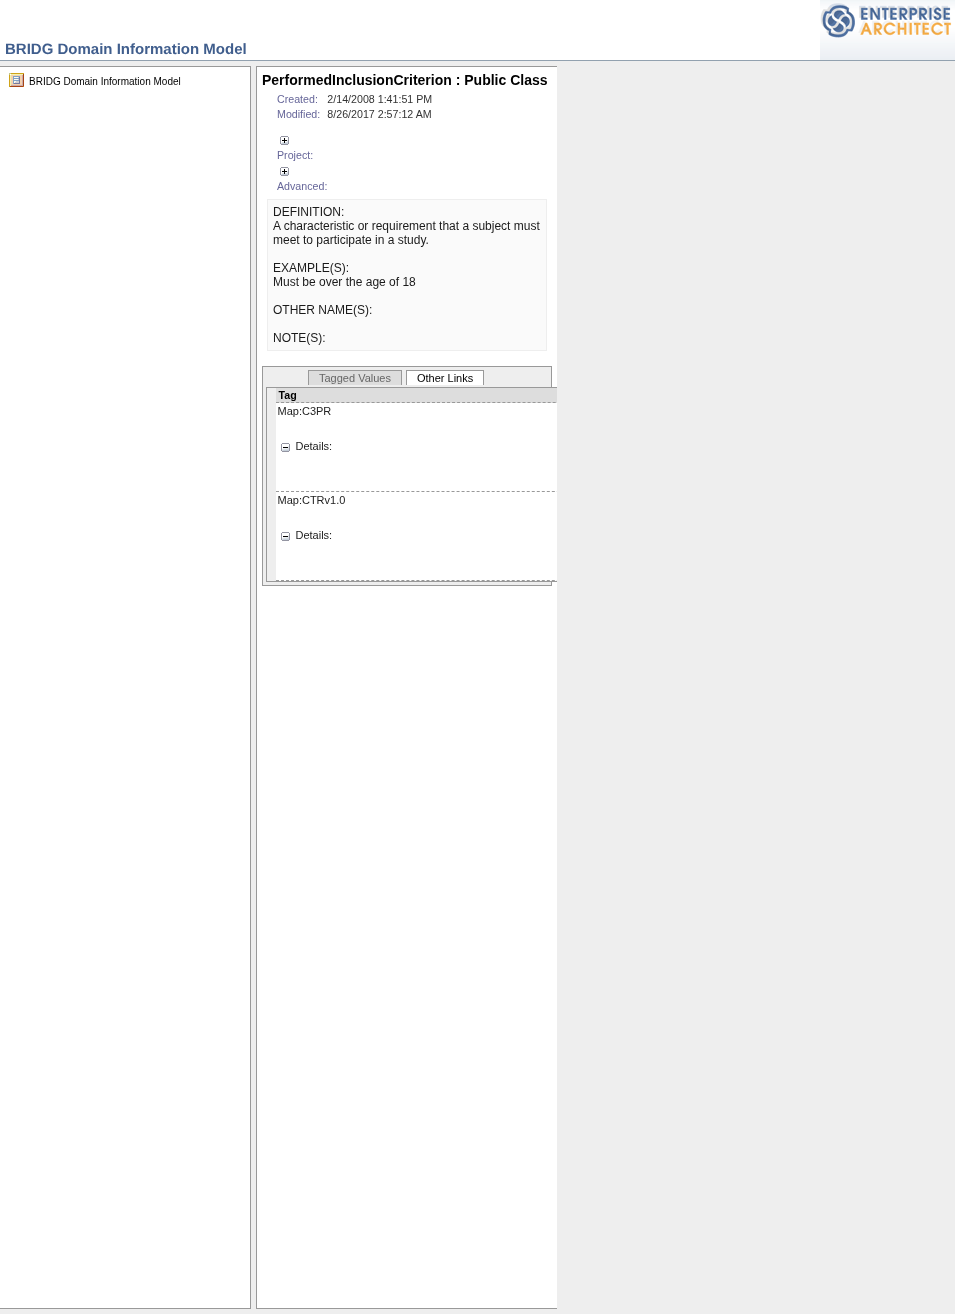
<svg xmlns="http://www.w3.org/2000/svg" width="955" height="1314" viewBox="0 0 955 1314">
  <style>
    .t1 { font: bold 15px Liberation Sans; fill: #405e8d; }
  </style>
  <rect width="100%" height="100%" fill="#eee"/>
  <rect x="0" y="0" width="820" height="60" fill="#fff"/>
  <rect x="0" y="60" width="955" height="1" fill="#92a1af"/>
  <image x="820" y="0" width="135" height="60" href="images/1.png"/>
  <text x="5" y="54" class="t1">BRIDG Domain Information Model</text>
  <rect x="0" y="66" width="251" height="1" fill="#999"/>
  <rect x="0" y="67" width="250" height="1241" fill="#fff"/>
  <rect x="250" y="66" width="1" height="1243" fill="#999"/>
  <rect x="256" y="66" width="301" height="1" fill="#999"/>
  <rect x="256" y="1308" width="301" height="1" fill="#999"/>
  <rect x="256" y="66" width="1" height="1243" fill="#999"/>
  <image x="257" y="67" width="300" height="1241" href="images/2.png"/>
  <image x="9" y="73" width="172" height="14" href="images/3.png"/>
  <rect x="0" y="1308" width="251" height="1" fill="#999"/>
</svg>
